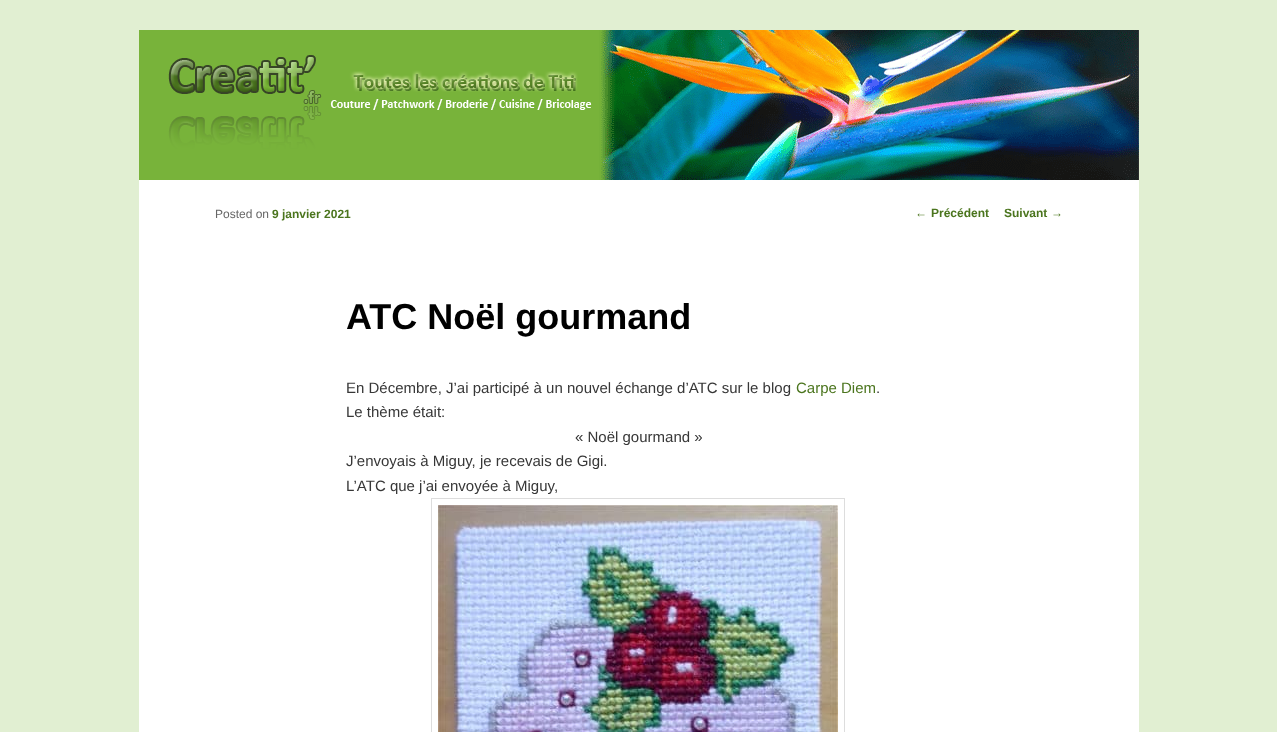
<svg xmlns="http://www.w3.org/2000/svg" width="1277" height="732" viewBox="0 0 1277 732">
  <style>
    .t1 { font: 12px Liberation Sans; fill: #666; }
    .t2 { font: bold 12px Liberation Sans; fill: #4b751e; }
    .t3 { font: bold 36px Liberation Sans; fill: #000; }
    .t4 { font: 15px Liberation Sans; fill: #373737; }
    .t5 { font: 15px Liberation Sans; fill: #4b751e; }
    .t6 { font: 12px Liberation Sans; fill: #4b751e; }
  </style>
  <rect width="100%" height="100%" fill="#e1efd2"/>
  <rect x="139" y="180" width="1000" height="552" fill="#fff"/>
  <image x="139" y="30" width="460" height="150" href="images/1.png"/>
  <image x="599" y="30" width="540" height="150" href="images/2.png"/>
  <text x="215" y="218" class="t1">Posted on</text>
  <text x="272" y="218" class="t2">9 janvier 2021</text>
  <text x="346" y="329" class="t3">ATC Noël gourmand</text>
  <text x="346" y="393" class="t4">En Décembre, J’ai participé à un nouvel échange d’ATC sur le blog</text>
  <text x="796" y="393" class="t5">Carpe Diem</text>
  <text x="876" y="393" class="t4">.</text>
  <text x="346" y="417" class="t4">Le thème était:</text>
  <text x="575" y="442" class="t4">« Noël gourmand »</text>
  <text x="346" y="466" class="t4">J’envoyais à Miguy, je recevais de Gigi.</text>
  <text x="346" y="491" class="t4">L’ATC que j’ai envoyée à Miguy,</text>
  <rect x="431.5" y="498.5" width="413" height="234" fill="none" stroke="#ddd"/>
  <image x="438" y="505" width="400" height="227" href="images/3.png"/>
  <text x="915" y="217" class="t6">←</text>
  <text x="931" y="217" class="t2">Précédent</text>
  <text x="1004" y="217" class="t2">Suivant</text>
  <text x="1051" y="217" class="t6">→</text>
</svg>
